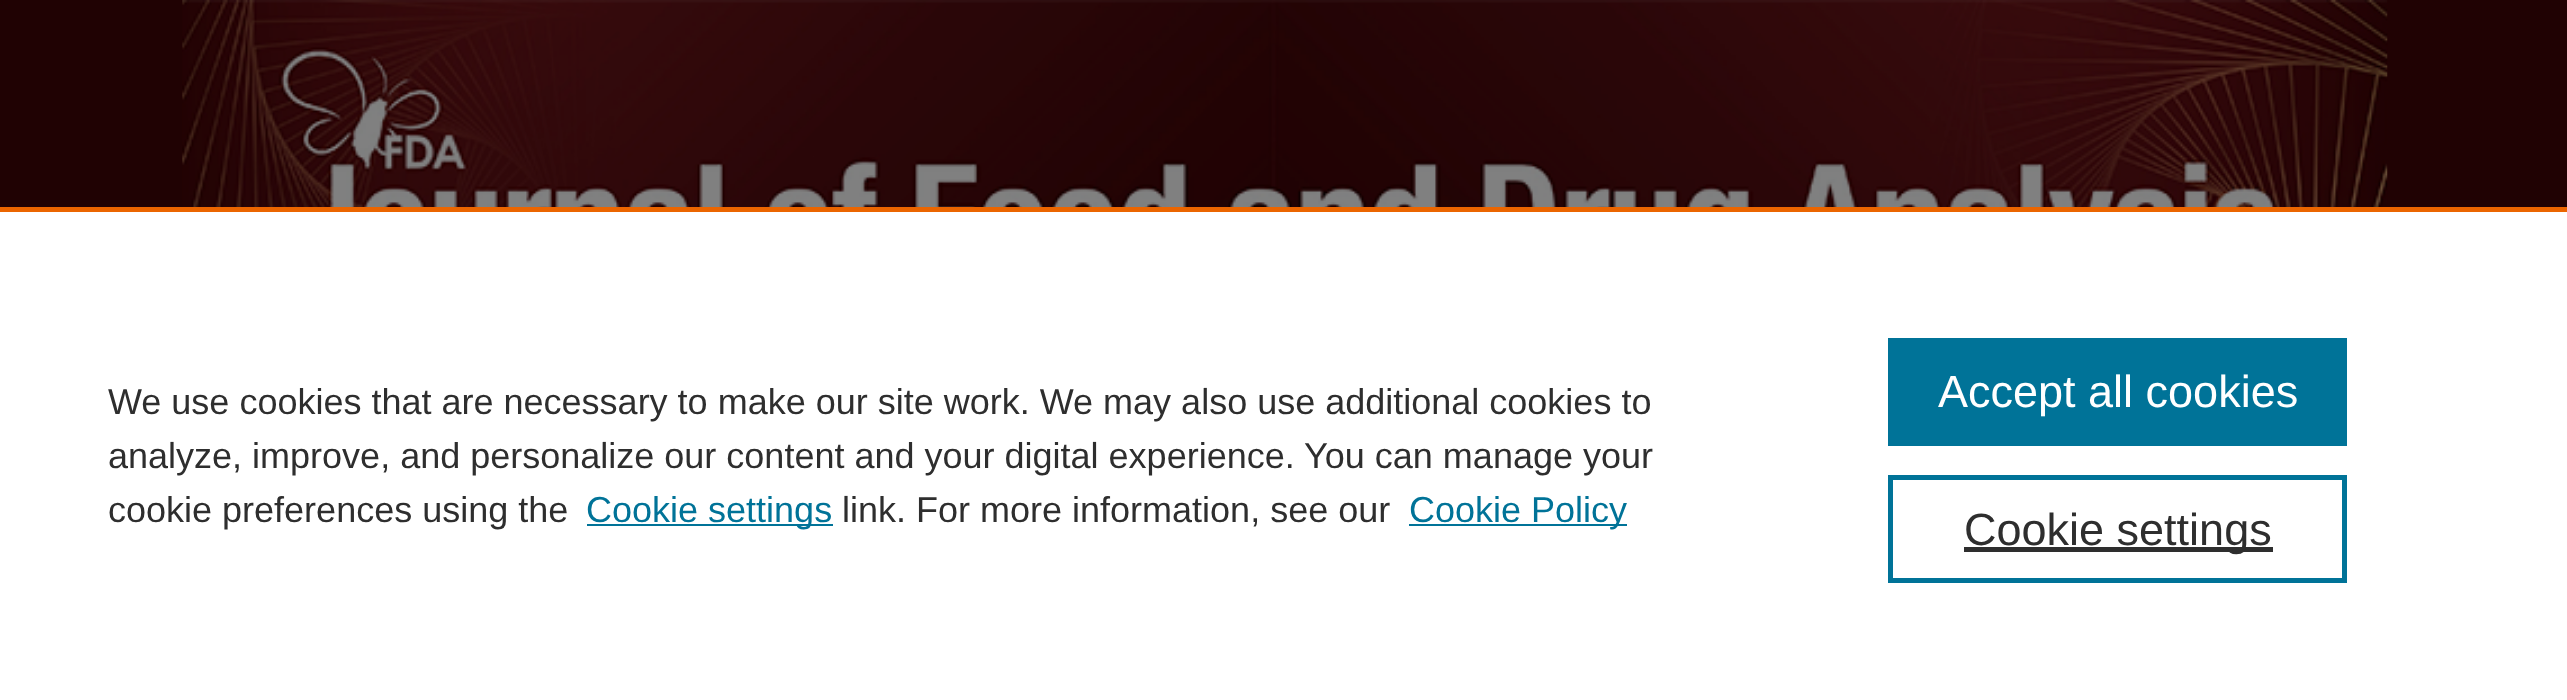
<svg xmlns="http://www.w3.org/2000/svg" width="2567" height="700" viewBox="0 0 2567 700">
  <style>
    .t1 { font: 36px Liberation Sans; fill: #2e2e2e; }
    .t2 { font: 36px Liberation Sans; fill: #007398; }
    .t3 { font: 45px Liberation Sans; fill: #fff; }
    .t4 { font: 45px Liberation Sans; fill: #2e2e2e; }
  </style>
  <rect width="100%" height="100%" fill="#200203"/>
  <image x="182" y="0" width="2206" height="207" href="images/1.png"/>
  <rect x="0" y="212" width="2567" height="488" fill="#fff"/>
  <rect x="0" y="207" width="2567" height="5" fill="#eb6500"/>
  <text x="108" y="414" class="t1">We use cookies that are necessary to make our site work. We may also use additional cookies to</text>
  <text x="108" y="468" class="t1">analyze, improve, and personalize our content and your digital experience. You can manage your</text>
  <text x="108" y="522" class="t1">cookie preferences using the</text>
  <rect x="587" y="524" width="246" height="2" fill="#007398"/>
  <text x="586" y="522" class="t2">Cookie settings</text>
  <text x="842" y="522" class="t1">link. For more information, see our</text>
  <rect x="1409" y="524" width="218" height="2" fill="#007398"/>
  <text x="1409" y="522" class="t2">Cookie Policy</text>
  <rect x="1888" y="338" width="459" height="108" fill="#007398"/>
  <text x="1938" y="407" class="t3">Accept all cookies</text>
  <rect x="1890.5" y="477.5" width="454" height="103" fill="none" stroke="#007398" stroke-width="5"/>
  <rect x="1964" y="547" width="309" height="5" fill="#2e2e2e"/>
  <text x="1964" y="545" class="t4">Cookie settings</text>
</svg>
